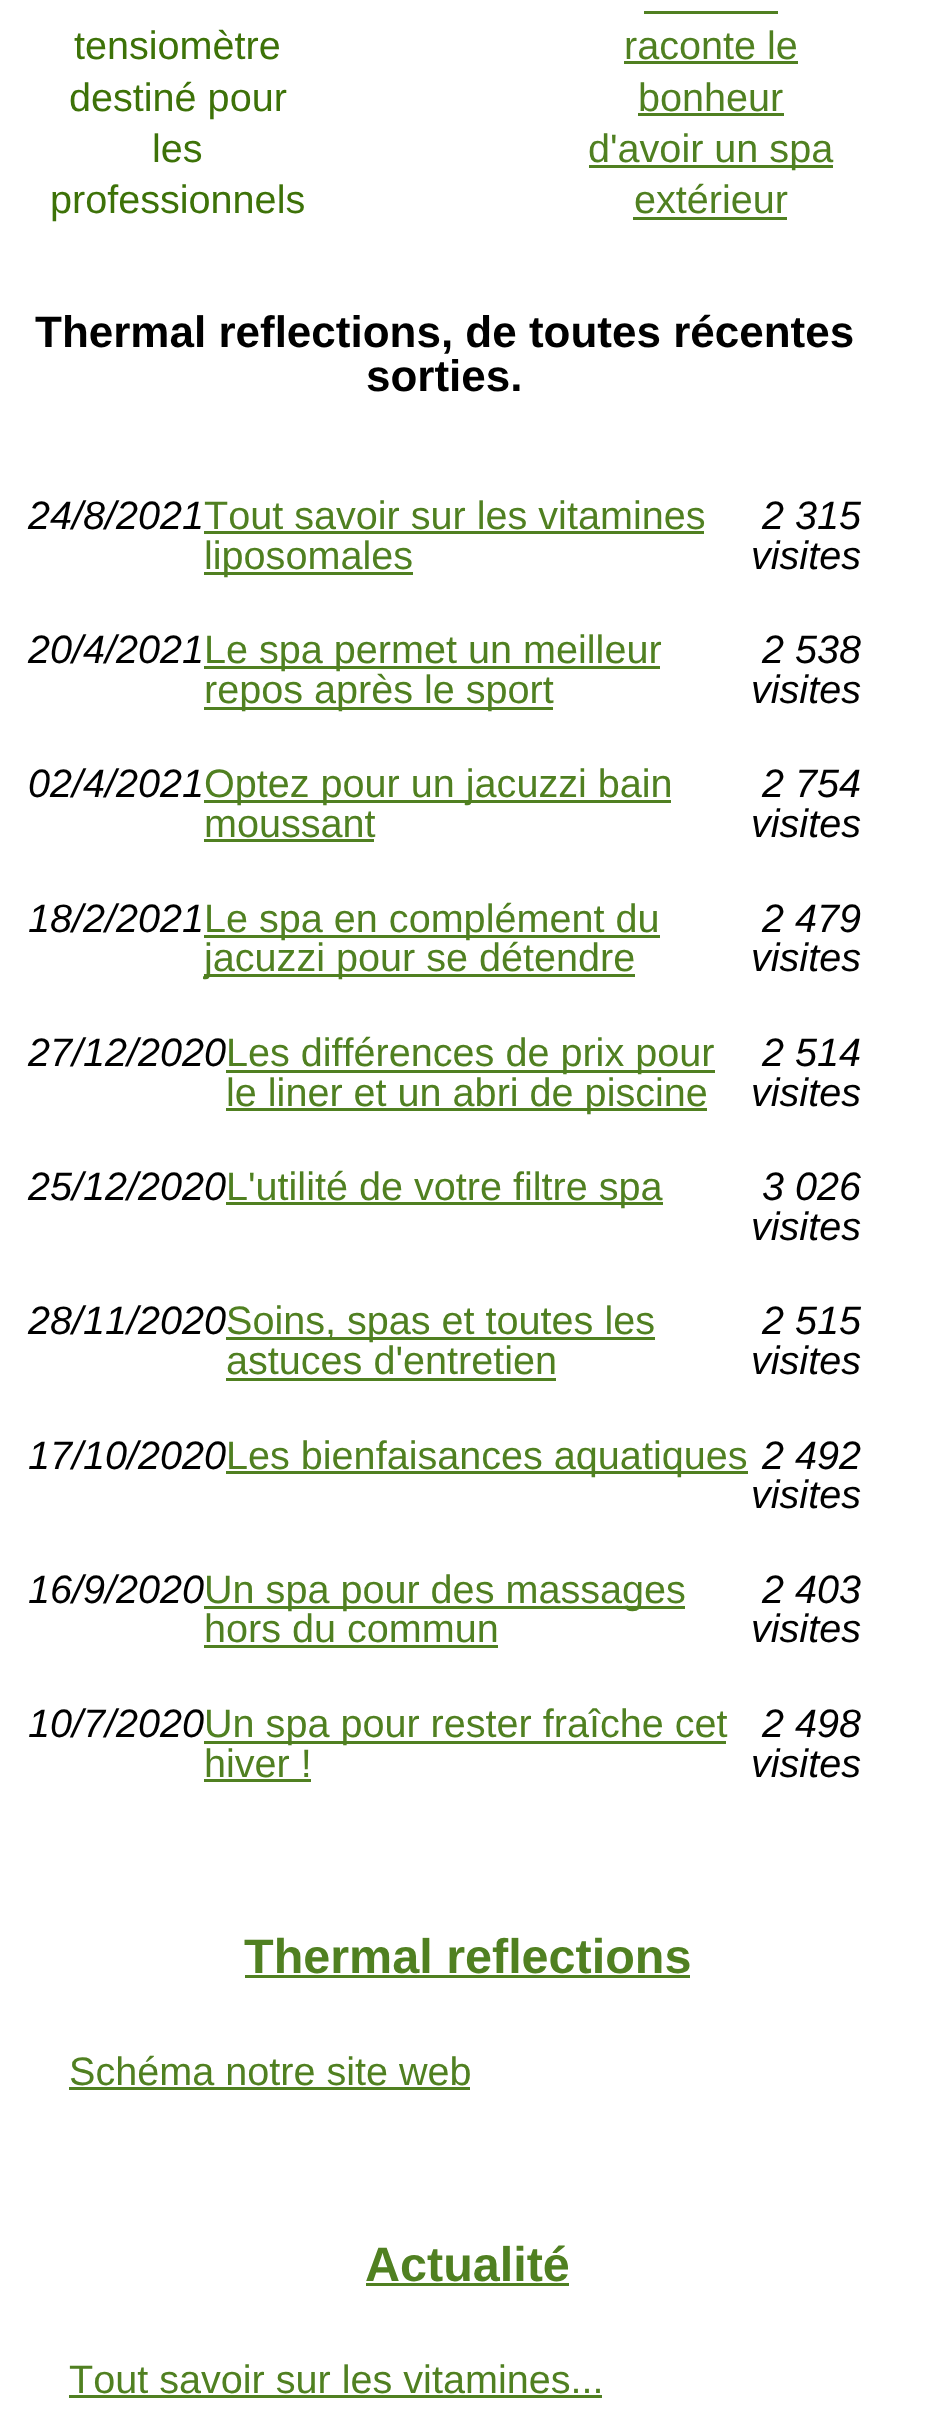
<svg xmlns="http://www.w3.org/2000/svg" width="934" height="2415" viewBox="0 0 934 2415">
  <style>*{font-kerning:none!important;font-variant-ligatures:none!important}</style>
  <style>
    .t1 { font: 39.6px Liberation Sans; fill: #3d7208; }
    .t2 { font: 39.6px Liberation Sans; fill: #508021; }
    .t3 { font: bold 44px Liberation Sans; fill: #000; }
    .t4 { font: italic 39.6px Liberation Sans; fill: #000; }
    .t5 { font: bold 48.5px Liberation Sans; fill: #508021; }
  </style>
  <rect width="100%" height="100%" fill="#fff"/>
  <text x="74" y="59" class="t1">tensiomètre</text>
  <text x="69" y="111" class="t1">destiné pour</text>
  <text x="152" y="162" class="t1">les</text>
  <text x="50" y="213" class="t1">professionnels</text>
  <text x="624" y="59" class="t2">raconte le</text>
  <rect x="644" y="11" width="134" height="3" fill="#508021"/>
  <rect x="624" y="61" width="174" height="3" fill="#508021"/>
  <text x="638" y="111" class="t2">bonheur</text>
  <rect x="638" y="113" width="146" height="3" fill="#508021"/>
  <rect x="589" y="165" width="244" height="3" fill="#508021"/>
  <text x="588" y="162" class="t2">d'avoir un spa</text>
  <text x="634" y="213" class="t2">extérieur</text>
  <rect x="633" y="217" width="154" height="3" fill="#508021"/>
  <text x="35" y="347" class="t3">Thermal reflections, de toutes récentes</text>
  <text x="366" y="391" class="t3">sorties.</text>
  <text x="28" y="529" class="t4">24/8/2021</text>
  <text x="204" y="529" class="t2">Tout savoir sur les vitamines</text>
  <rect x="204" y="531" width="500" height="3" fill="#508021"/>
  <rect x="204" y="572" width="209" height="3" fill="#508021"/>
  <text x="204" y="569" class="t2">liposomales</text>
  <text x="762" y="529" class="t4">2 315</text>
  <text x="751" y="569" class="t4">visites</text>
  <text x="28" y="663" class="t4">20/4/2021</text>
  <rect x="204" y="666" width="456" height="3" fill="#508021"/>
  <text x="204" y="663" class="t2">Le spa permet un meilleur</text>
  <rect x="204" y="707" width="349" height="3" fill="#508021"/>
  <text x="204" y="703" class="t2">repos après le sport</text>
  <text x="762" y="663" class="t4">2 538</text>
  <text x="751" y="703" class="t4">visites</text>
  <text x="28" y="797" class="t4">02/4/2021</text>
  <rect x="204" y="800" width="467" height="3" fill="#508021"/>
  <text x="204" y="797" class="t2">Optez pour un jacuzzi bain</text>
  <text x="204" y="837" class="t2">moussant</text>
  <rect x="204" y="839" width="170" height="3" fill="#508021"/>
  <text x="762" y="797" class="t4">2 754</text>
  <text x="751" y="837" class="t4">visites</text>
  <text x="28" y="932" class="t4">18/2/2021</text>
  <rect x="204" y="935" width="456" height="3" fill="#508021"/>
  <text x="204" y="932" class="t2">Le spa en complément du</text>
  <rect x="204" y="974" width="431" height="3" fill="#508021"/>
  <text x="204" y="971" class="t2">jacuzzi pour se détendre</text>
  <text x="762" y="932" class="t4">2 479</text>
  <text x="751" y="971" class="t4">visites</text>
  <text x="28" y="1066" class="t4">27/12/2020</text>
  <rect x="226" y="1070" width="489" height="3" fill="#508021"/>
  <text x="226" y="1066" class="t2">Les différences de prix pour</text>
  <rect x="226" y="1108" width="481" height="3" fill="#508021"/>
  <text x="226" y="1106" class="t2">le liner et un abri de piscine</text>
  <text x="762" y="1066" class="t4">2 514</text>
  <text x="751" y="1106" class="t4">visites</text>
  <text x="28" y="1200" class="t4">25/12/2020</text>
  <rect x="226" y="1202" width="437" height="3" fill="#508021"/>
  <text x="226" y="1200" class="t2">L'utilité de votre filtre spa</text>
  <text x="762" y="1200" class="t4">3 026</text>
  <text x="751" y="1240" class="t4">visites</text>
  <text x="28" y="1334" class="t4">28/11/2020</text>
  <rect x="226" y="1337" width="429" height="3" fill="#508021"/>
  <text x="226" y="1334" class="t2">Soins, spas et toutes les</text>
  <text x="226" y="1374" class="t2">astuces d'entretien</text>
  <rect x="226" y="1378" width="330" height="3" fill="#508021"/>
  <text x="762" y="1334" class="t4">2 515</text>
  <text x="751" y="1374" class="t4">visites</text>
  <text x="28" y="1469" class="t4">17/10/2020</text>
  <rect x="226" y="1471" width="522" height="3" fill="#508021"/>
  <text x="226" y="1469" class="t2">Les bienfaisances aquatiques</text>
  <text x="762" y="1469" class="t4">2 492</text>
  <text x="751" y="1508" class="t4">visites</text>
  <text x="28" y="1603" class="t4">16/9/2020</text>
  <rect x="204" y="1606" width="481" height="3" fill="#508021"/>
  <text x="204" y="1603" class="t2">Un spa pour des massages</text>
  <text x="204" y="1642" class="t2">hors du commun</text>
  <rect x="204" y="1645" width="294" height="3" fill="#508021"/>
  <text x="762" y="1603" class="t4">2 403</text>
  <text x="751" y="1642" class="t4">visites</text>
  <text x="28" y="1737" class="t4">10/7/2020</text>
  <rect x="204" y="1741" width="522" height="3" fill="#508021"/>
  <text x="204" y="1737" class="t2">Un spa pour rester fraîche cet</text>
  <text x="204" y="1777" class="t2">hiver !</text>
  <rect x="204" y="1779" width="107" height="3" fill="#508021"/>
  <text x="762" y="1737" class="t4">2 498</text>
  <text x="751" y="1777" class="t4">visites</text>
  <text x="244" y="1973" class="t5">Thermal reflections</text>
  <rect x="245" y="1975" width="445" height="3" fill="#508021"/>
  <text x="69" y="2085" class="t2">Schéma notre site web</text>
  <rect x="69" y="2087" width="401" height="3" fill="#508021"/>
  <text x="365" y="2281" class="t5">Actualité</text>
  <rect x="366" y="2283" width="203" height="3" fill="#508021"/>
  <text x="69" y="2393" class="t2">Tout savoir sur les vitamines...</text>
  <rect x="69" y="2395" width="533" height="3" fill="#508021"/>
</svg>
